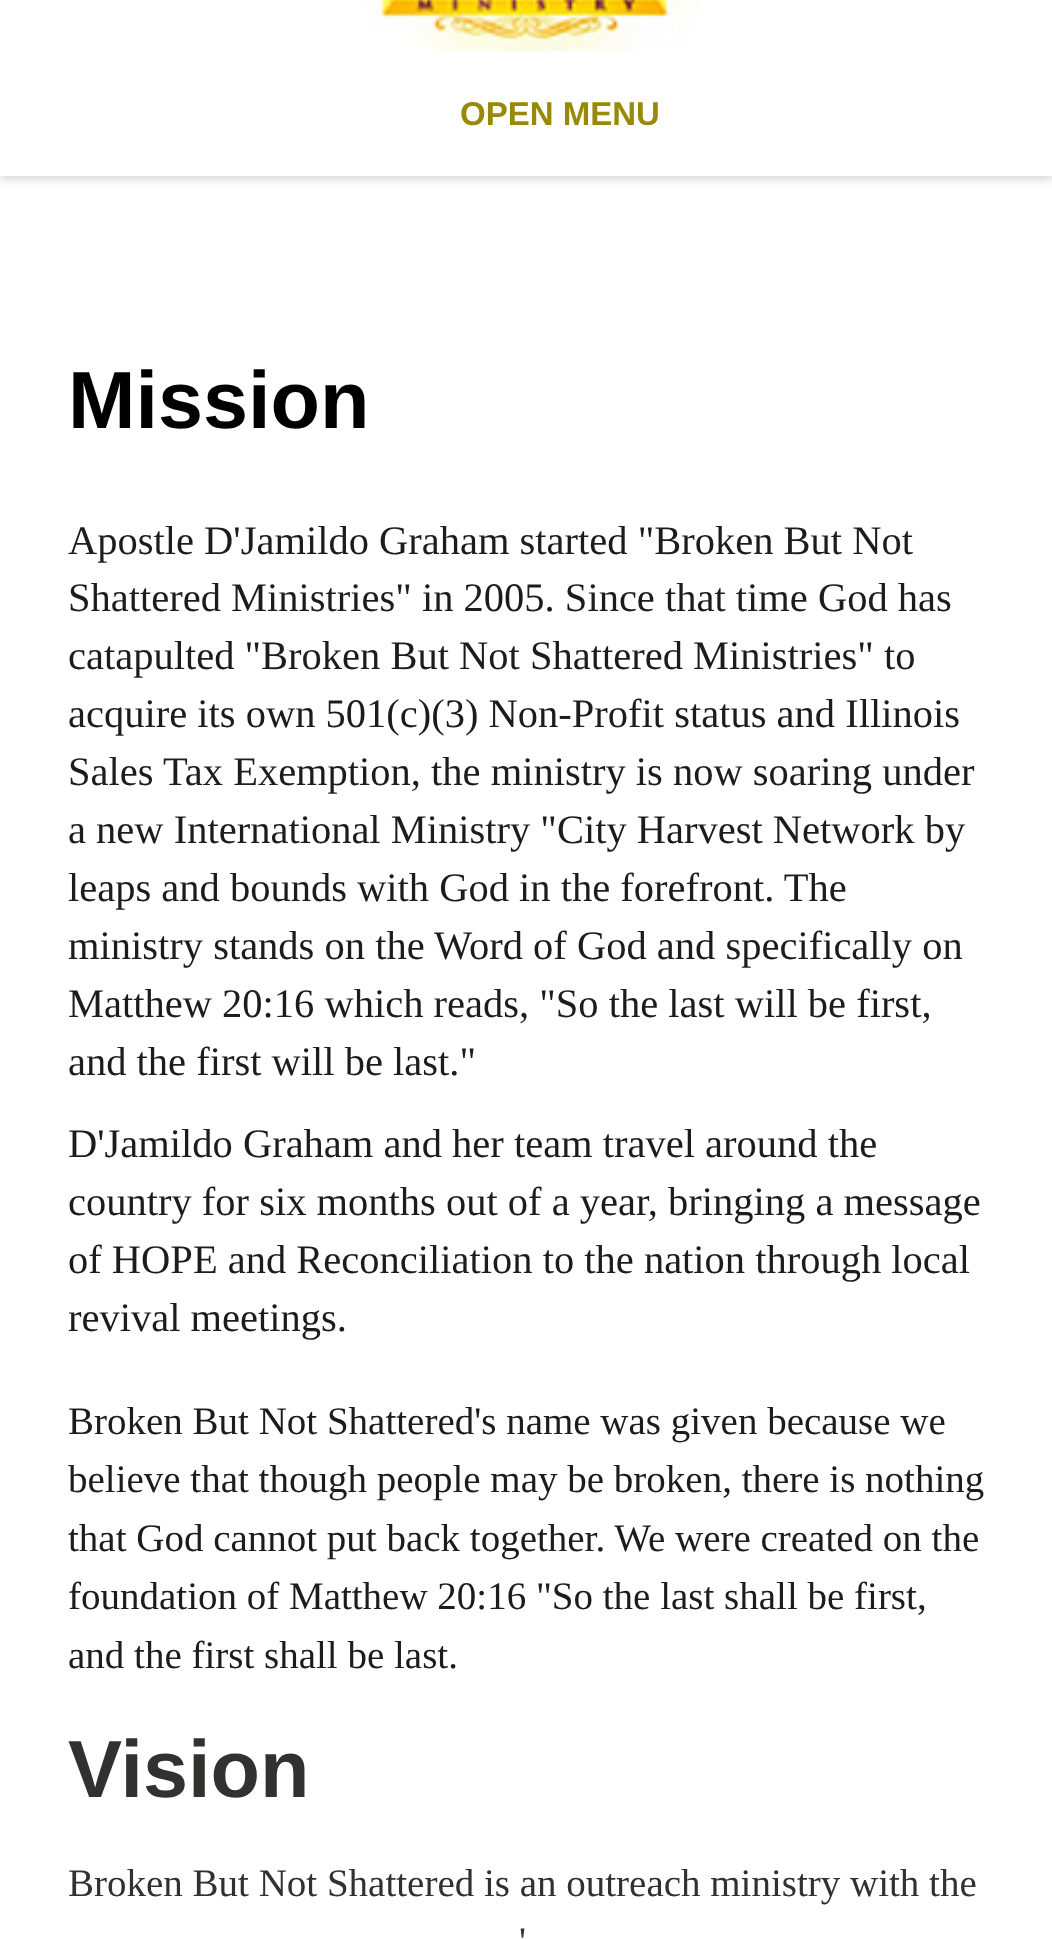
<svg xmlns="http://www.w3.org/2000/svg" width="1052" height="1939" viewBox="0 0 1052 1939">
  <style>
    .t1 { font: bold 33px Liberation Sans; fill: #988a06; }
    .t2 { font: bold 81px Liberation Sans; fill: #000; }
    .t3 { font: 40.5px Liberation Serif; fill: #1c1c1c; }
    .t4 { font: 39px Liberation Serif; fill: #1c1c1c; }
    .t5 { font: bold 81px Liberation Sans; fill: #323130; }
    .t6 { font: 39px Liberation Serif; fill: #323130; }
  </style>
  <rect width="100%" height="100%" fill="#fff"/>
  <rect x="0" y="-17" width="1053" height="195" fill="#00000033" filter="blur(5.5px)"/>
  <rect x="0" y="0" width="1052" height="176" fill="#fff"/>
  <image x="356" y="0" width="344" height="52" href="images/1.png"/>
  <text x="460" y="125" class="t1">OPEN MENU</text>
  <text x="68" y="428" class="t2">Mission</text>
  <text x="68" y="554" class="t3">Apostle D'Jamildo Graham started "Broken But Not</text>
  <text x="68" y="611" class="t3">Shattered Ministries" in 2005. Since that time God has</text>
  <text x="68" y="669" class="t3">catapulted "Broken But Not Shattered Ministries" to</text>
  <text x="68" y="727" class="t3">acquire its own 501(c)(3) Non-Profit status and Illinois</text>
  <text x="68" y="785" class="t3">Sales Tax Exemption, the ministry is now soaring under</text>
  <text x="68" y="843" class="t3">a new International Ministry "City Harvest Network by</text>
  <text x="68" y="901" class="t3">leaps and bounds with God in the forefront. The</text>
  <text x="68" y="959" class="t3">ministry stands on the Word of God and specifically on</text>
  <text x="68" y="1017" class="t3">Matthew 20:16 which reads, "So the last will be first,</text>
  <text x="68" y="1075" class="t3">and the first will be last."</text>
  <text x="68" y="1157" class="t3">D'Jamildo Graham and her team travel around the</text>
  <text x="68" y="1215" class="t3">country for six months out of a year, bringing a message</text>
  <text x="68" y="1273" class="t3">of HOPE and Reconciliation to the nation through local</text>
  <text x="68" y="1331" class="t3">revival meetings.</text>
  <text x="68" y="1434" class="t4">Broken But Not Shattered's name was given because we</text>
  <text x="68" y="1492" class="t4">believe that though people may be broken, there is nothing</text>
  <text x="68" y="1551" class="t4">that God cannot put back together. We were created on the</text>
  <text x="68" y="1609" class="t4">foundation of Matthew 20:16 "So the last shall be first,</text>
  <text x="68" y="1668" class="t4">and the first shall be last.</text>
  <text x="68" y="1797" class="t5">Vision</text>
  <text x="68" y="1896" class="t6">Broken But Not Shattered is an outreach ministry with the</text>
  <text x="519" y="1954" class="t6">'</text>
</svg>
